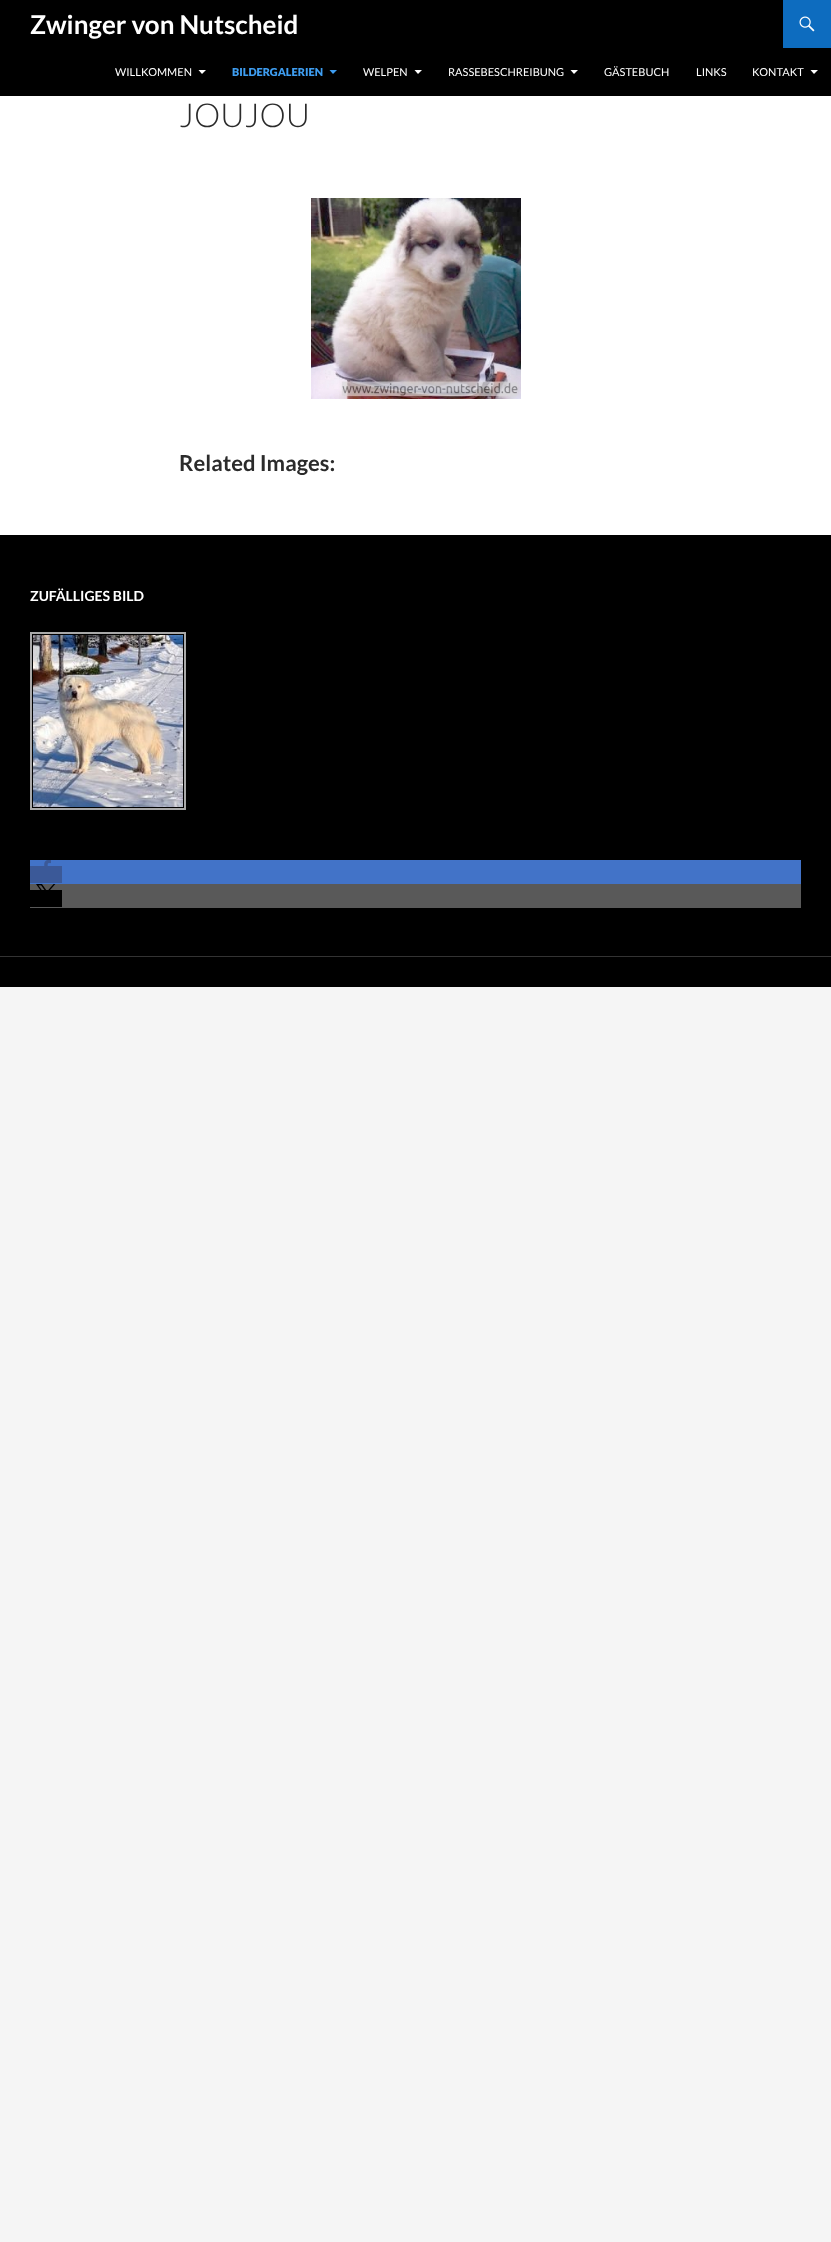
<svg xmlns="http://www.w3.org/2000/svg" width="831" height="2242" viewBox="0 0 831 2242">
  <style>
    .t1 { font: bold 26px Lato; fill: #fff; }
    .t2 { font: 11px Lato; fill: #fff; }
    .t3 { font: 900 11px Lato; fill: #3e9df0; }
    .t4 { font: 300 33px Lato; fill: #2b2b2b; }
    .t5 { font: bold 22px Lato; fill: #2b2b2b; }
    .t6 { font: bold 14px Lato; fill: #fff; }
  </style>
  <rect width="100%" height="100%" fill="#f5f5f5"/>
  <rect x="0" y="96" width="831" height="439" fill="#fff"/>
  <rect x="0" y="0" width="831" height="96" fill="#000"/>
  <text x="30" y="34" class="t1">Zwinger von Nutscheid</text>
  <rect x="783" y="0" width="48" height="48" fill="#0d6cbf"/>
  <image x="799" y="16" width="16" height="16" href="images/1.png"/>
  <text x="115" y="76" class="t2">WILLKOMMEN</text>
  <path d="M198.5 70L202 74L206 70Z" fill="#fff"/>
  <text x="232" y="76" class="t3">BILDERGALERIEN</text>
  <path d="M329.5 70L333 74L337 70Z" fill="#3e9df0"/>
  <text x="363" y="76" class="t2">WELPEN</text>
  <path d="M414.5 70L418 74L422 70Z" fill="#fff"/>
  <text x="448" y="76" class="t2">RASSEBESCHREIBUNG</text>
  <path d="M570.5 70L574 74L578 70Z" fill="#fff"/>
  <text x="604" y="76" class="t2">GÄSTEBUCH</text>
  <text x="696" y="76" class="t2">LINKS</text>
  <text x="752" y="76" class="t2">KONTAKT</text>
  <path d="M810.5 70L814 74L818 70Z" fill="#fff"/>
  <text x="179" y="127" class="t4">JOUJOU</text>
  <image x="311" y="198" width="210" height="201" href="images/2.png"/>
  <text x="179" y="471" class="t5">Related Images:</text>
  <rect x="0" y="535" width="831" height="421" fill="#000"/>
  <rect x="0" y="956" width="831" height="1" fill="#333"/>
  <text x="30" y="601" class="t6">ZUFÄLLIGES BILD</text>
  <rect x="31" y="633" width="154" height="176" fill="none" stroke="#a9a9a9" stroke-width="2"/>
  <image x="33" y="635" width="150" height="172" href="images/3.png"/>
  <rect x="30" y="860" width="771" height="24" fill="#4273c8"/>
  <image x="44" y="860" width="7" height="6" href="images/4.png"/>
  <rect x="30" y="866" width="32" height="17" fill="#3b5998"/>
  <rect x="30" y="884" width="771" height="24" fill="#595959"/>
  <image x="36" y="884" width="20" height="6" href="images/5.png"/>
  <rect x="30" y="890" width="32" height="17" fill="#000"/>
  <rect x="0" y="957" width="831" height="30" fill="#000"/>
</svg>
